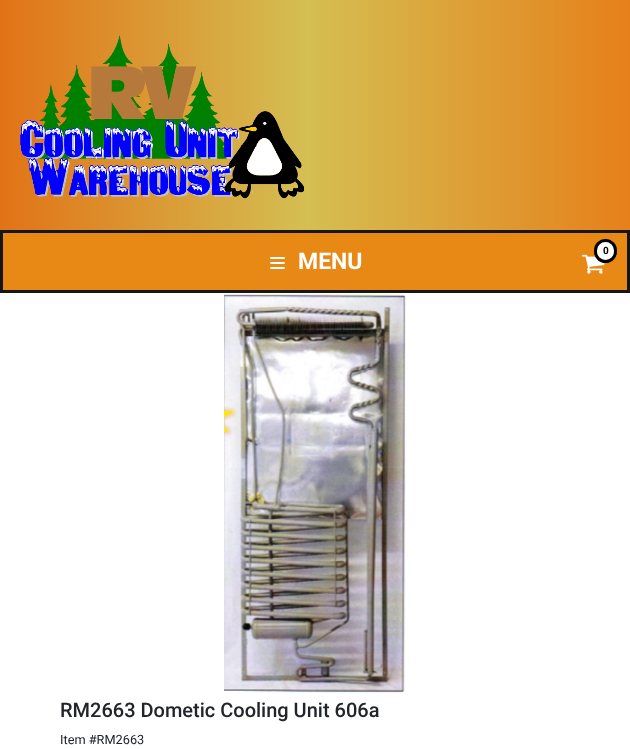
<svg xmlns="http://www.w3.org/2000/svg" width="630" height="749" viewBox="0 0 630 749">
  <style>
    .t1 { font: bold 10px Roboto; fill: #000; }
    .t2 { font: bold 23px Roboto; fill: #fff; }
    .t3 { font: 500 20px Roboto; fill: #212529; }
    .t4 { font: 12.75px Roboto; fill: #212529; }
  </style>
  <defs>
    <linearGradient id="g1" gradientUnits="userSpaceOnUse" x1="0" y1="115" x2="630" y2="115"><stop offset="0" stop-color="#e17316"/><stop offset="0.49" stop-color="#d4bf53"/><stop offset="0.5" stop-color="#d5bd51"/><stop offset="1" stop-color="#e6801a"/></linearGradient>
  </defs>
  <rect width="100%" height="100%" fill="#fff"/>
  <rect x="0" y="0" width="630" height="230" fill="url(#g1)"/>
  <image x="20" y="35" width="284" height="164" href="images/1.png"/>
  <rect x="1.5" y="231.5" width="627" height="60" fill="#e88815" stroke="#161616" stroke-width="3"/>
  <image x="582" y="254" width="23" height="20" href="images/2.png"/>
  <rect x="595.5" y="240.5" width="20" height="21" rx="10" fill="#fff" stroke="#000" stroke-width="3"/>
  <text x="603" y="254" class="t1">0</text>
  <rect x="270" y="257" width="15" height="2" rx="1" fill="#fff"/>
  <rect x="270" y="262" width="15" height="2" rx="1" fill="#fff"/>
  <rect x="270" y="267" width="15" height="2" rx="1" fill="#fff"/>
  <text x="298" y="269" class="t2">MENU</text>
  <image x="224" y="293" width="182" height="400" href="images/3.png"/>
  <text x="60" y="717" class="t3">RM2663 Dometic Cooling Unit 606a</text>
  <text x="60" y="744" class="t4">Item #RM2663</text>
</svg>
